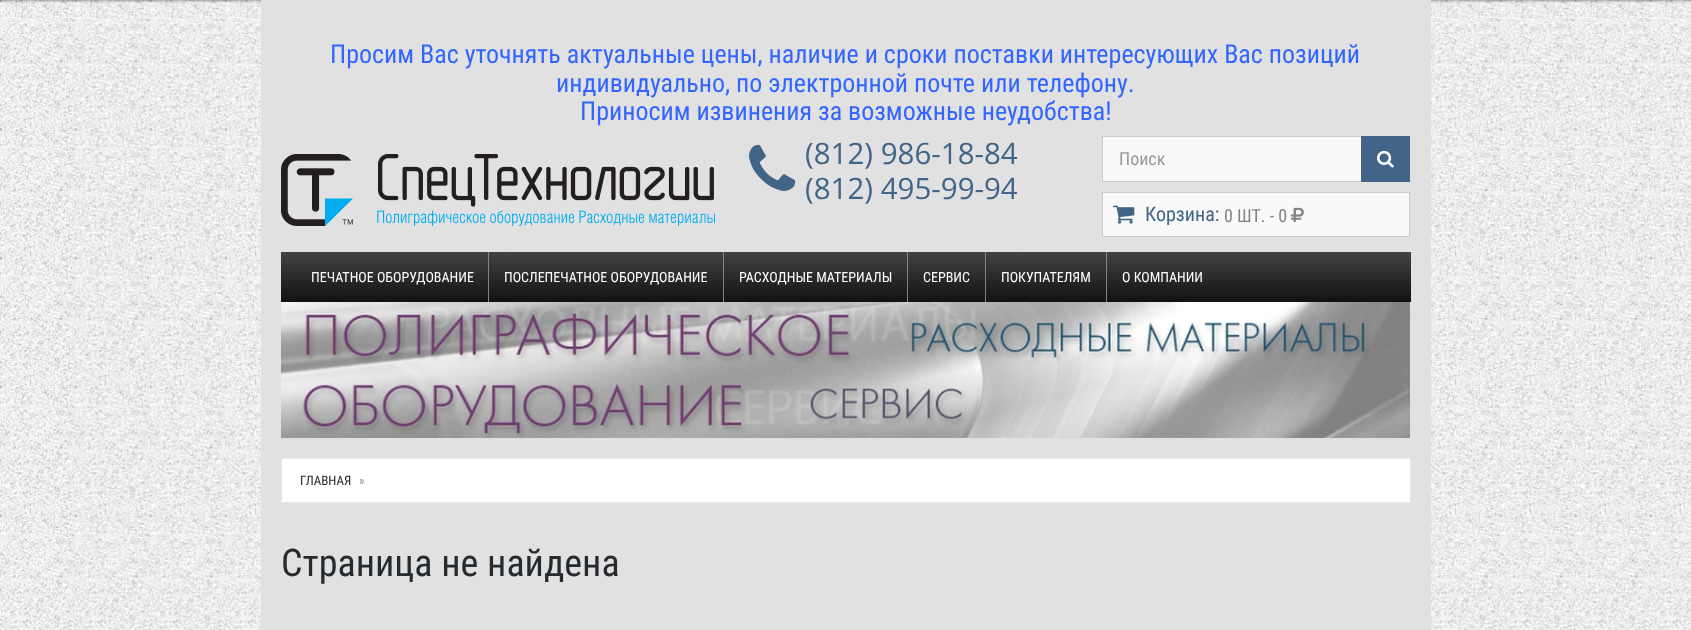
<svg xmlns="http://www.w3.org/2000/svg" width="1691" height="630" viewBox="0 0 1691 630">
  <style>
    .t1 { font: 26px Roboto Condensed; fill: #36f; }
    .t2 { font: 29.5px Open Sans; fill: #416487; }
    .t3 { font: 18px Roboto Condensed; fill: #999; }
    .t4 { font: 20px Roboto Condensed; fill: #416487; }
    .t5 { font: 18px Roboto Condensed; fill: #828282; }
    .t6 { font: 14px Roboto Condensed; fill: #fff; }
    .t7 { font: 13px Roboto Condensed; fill: #252a2f; }
    .t8 { font: 13px Roboto Condensed; fill: #878a8c; }
    .t9 { font: 38px Roboto Condensed; fill: #252a2f; }
  </style>
  <defs>
    <linearGradient id="g1" gradientUnits="userSpaceOnUse" x1="846" y1="252" x2="846" y2="302"><stop offset="0" stop-color="#444"/><stop offset="1" stop-color="#111"/></linearGradient>
  </defs>
  <rect width="100%" height="100%" fill="#fff"/>
  <image x="0" y="0" width="1691" height="630" href="images/1.png"/>
  <rect x="261" y="0" width="1170" height="630" fill="#e1e1e1"/>
  <text x="330" y="63" class="t1">Просим Вас уточнять актуальные цены, наличие и сроки поставки интересующих Вас позиций</text>
  <text x="556" y="92" class="t1">индивидуально, по электронной почте или телефону.</text>
  <text x="580" y="120" class="t1">Приносим извинения за возможные неудобства!</text>
  <image x="281" y="154" width="434" height="72" href="images/2.png"/>
  <image x="749" y="144" width="47" height="47" href="images/3.png"/>
  <text x="805" y="164" class="t2">(812) 986-18-84</text>
  <text x="805" y="199" class="t2">(812) 495-99-94</text>
  <rect x="1103" y="137" width="258" height="44" fill="#f9f9f9"/>
  <rect x="1102" y="136" width="259" height="1" fill="#cbcbcb"/>
  <rect x="1102" y="181" width="259" height="1" fill="#cbcbcb"/>
  <rect x="1102" y="136" width="1" height="46" fill="#cbcbcb"/>
  <text x="1119" y="165" class="t3">Поиск</text>
  <rect x="1361" y="136" width="49" height="46" fill="#416487"/>
  <image x="1377" y="150" width="17" height="18" href="images/4.png"/>
  <rect x="1102.5" y="192.5" width="307" height="44" fill="#f9f9f9" stroke="#cbcbcb"/>
  <image x="1113" y="205" width="22" height="19" href="images/5.png"/>
  <text x="1145" y="221" class="t4">Корзина:</text>
  <text x="1224" y="222" class="t5">0 ШТ. - 0</text>
  <image x="1291" y="207" width="13" height="15" href="images/6.png"/>
  <rect x="281" y="252" width="1130" height="50" fill="url(#g1)"/>
  <text x="311" y="282" class="t6">ПЕЧАТНОЕ ОБОРУДОВАНИЕ</text>
  <rect x="488" y="252" width="1" height="50" fill="#848484"/>
  <text x="504" y="282" class="t6">ПОСЛЕПЕЧАТНОЕ ОБОРУДОВАНИЕ</text>
  <rect x="723" y="252" width="1" height="50" fill="#848484"/>
  <text x="739" y="282" class="t6">РАСХОДНЫЕ МАТЕРИАЛЫ</text>
  <rect x="907" y="252" width="1" height="50" fill="#848484"/>
  <text x="923" y="282" class="t6">СЕРВИС</text>
  <rect x="985" y="252" width="1" height="50" fill="#848484"/>
  <text x="1001" y="282" class="t6">ПОКУПАТЕЛЯМ</text>
  <rect x="1106" y="252" width="1" height="50" fill="#848484"/>
  <text x="1122" y="282" class="t6">О КОМПАНИИ</text>
  <image x="281" y="302" width="1129" height="136" href="images/7.png"/>
  <rect x="281.5" y="458.5" width="1129" height="44" fill="#fff" stroke="#e8e8e8"/>
  <text x="300" y="485" class="t7">ГЛАВНАЯ</text>
  <text x="359" y="485" class="t8">»</text>
  <text x="281" y="576" class="t9">Страница не найдена</text>
</svg>
